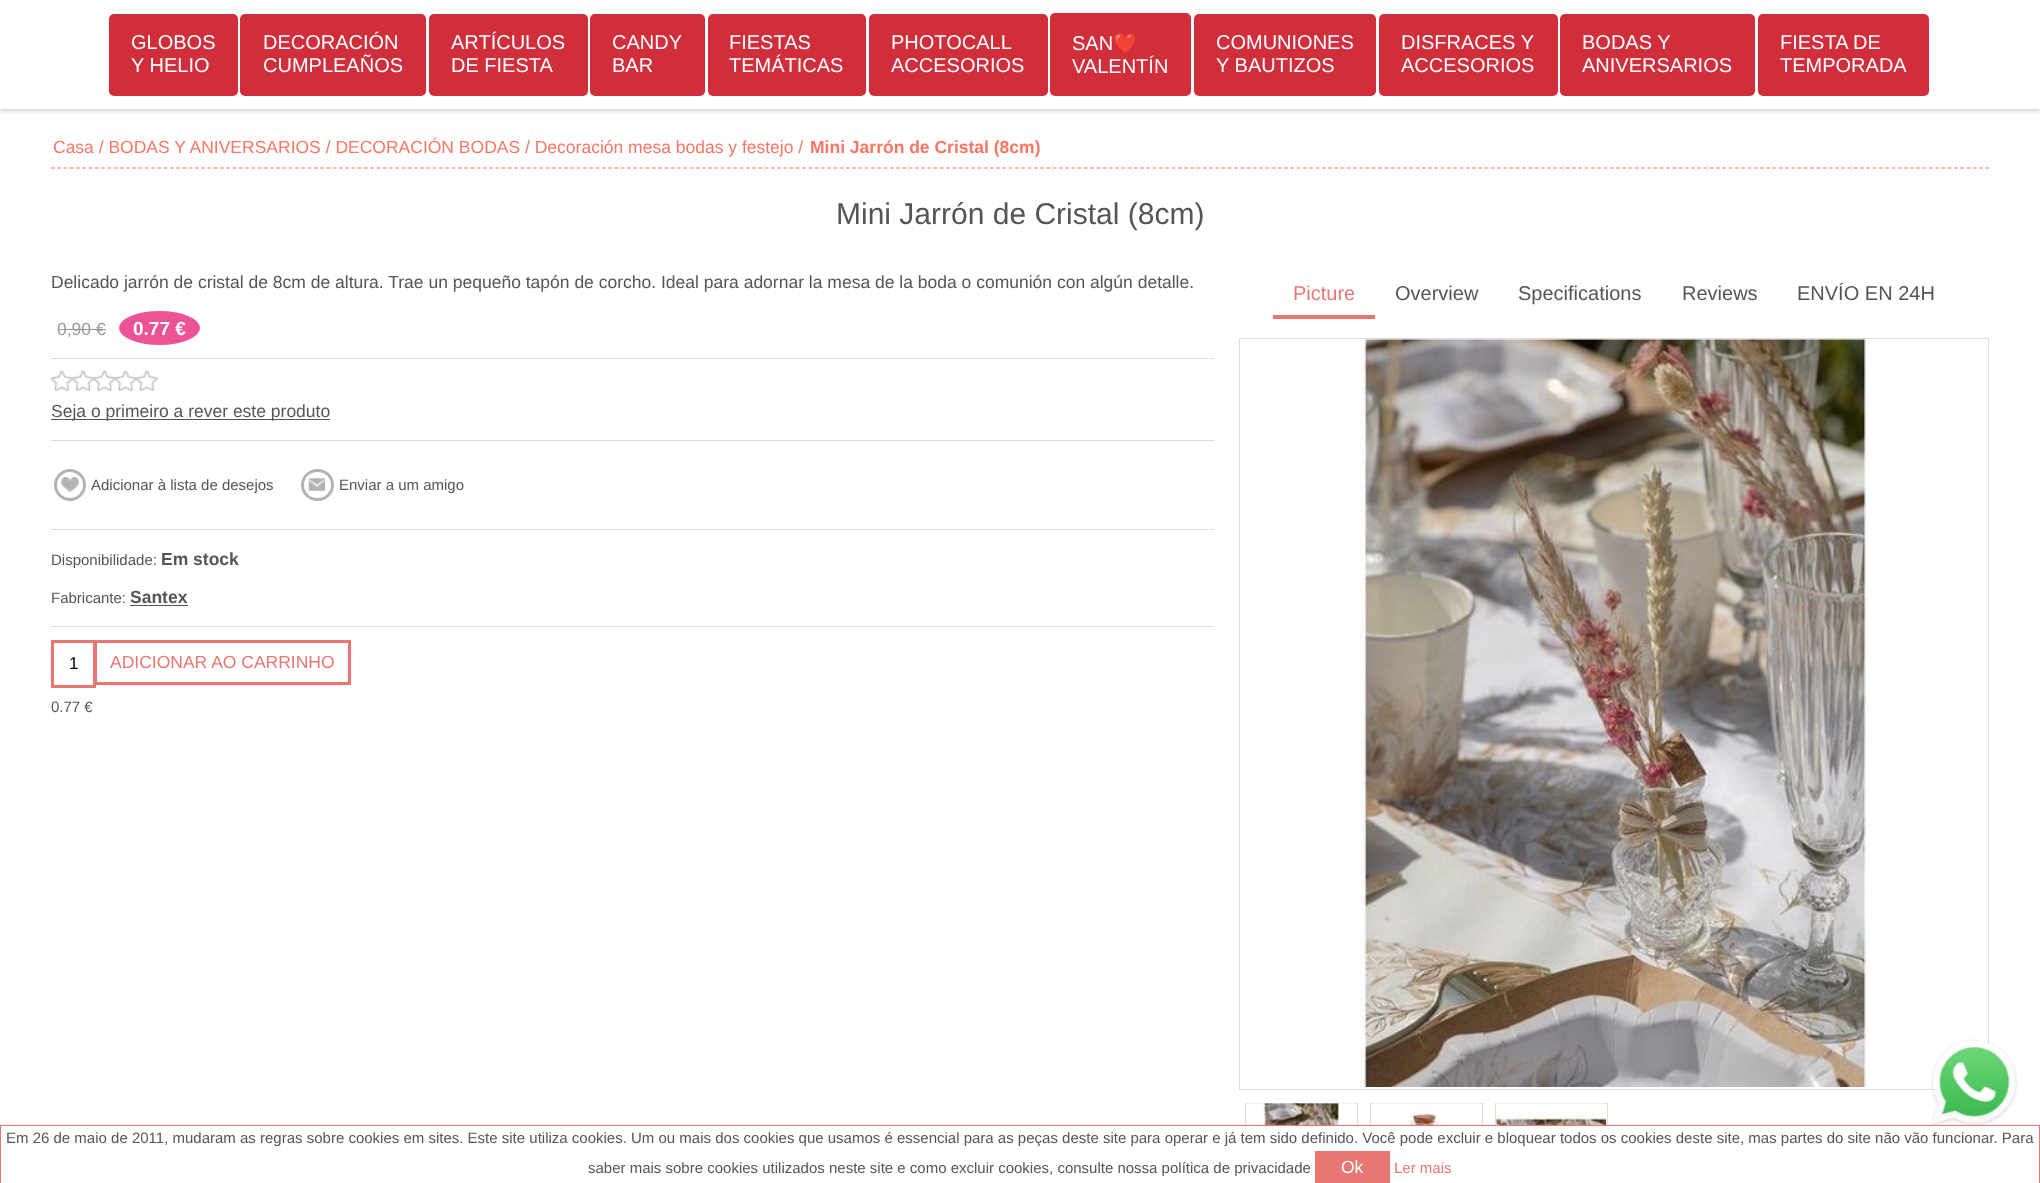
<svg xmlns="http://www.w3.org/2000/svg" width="2040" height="1183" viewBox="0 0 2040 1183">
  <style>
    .t1 { font: 20px Liberation Sans; fill: #fff; }
    .t2 { font: 20px Noto Color Emoji; fill: #fff; }
    .t3 { font: 17.5px Liberation Sans; fill: #fa7663; }
    .t4 { font: bold 17.5px Liberation Sans; fill: #fa7663; }
    .t5 { font: 30px Liberation Sans; fill: #555; }
    .t6 { font: 17.5px Liberation Sans; fill: #555; }
    .t7 { font: 17.5px Liberation Sans; fill: #999; }
    .t8 { font: bold 19px Liberation Sans; fill: #fff; }
    .t9 { font: 15px Liberation Sans; fill: #555; }
    .t10 { font: bold 17.5px Liberation Sans; fill: #555; }
    .t11 { font: 17px Liberation Sans; fill: #000; }
    .t12 { font: 17.5px Liberation Sans; fill: #e87772; }
    .t13 { font: 20px Liberation Sans; fill: #e87772; }
    .t14 { font: 20px Liberation Sans; fill: #555; }
    .t15 { font: 17.5px Liberation Sans; fill: #fff; }
    .t16 { font: 15px Liberation Sans; fill: #e87772; }
  </style>
  <rect width="100%" height="100%" fill="#fff"/>
  <rect x="0" y="3" width="2040" height="108" fill="#00000033" filter="blur(2px)"/>
  <rect x="0" y="0" width="2040" height="109" fill="#fff"/>
  <rect x="109" y="14" width="129" height="82" rx="5" fill="#d12e3c"/>
  <text x="131" y="49" class="t1">GLOBOS</text>
  <text x="131" y="72" class="t1">Y HELIO</text>
  <rect x="240" y="14" width="186" height="82" rx="5" fill="#d12e3c"/>
  <text x="263" y="49" class="t1">DECORACIÓN</text>
  <text x="263" y="72" class="t1">CUMPLEAÑOS</text>
  <rect x="429" y="14" width="159" height="82" rx="5" fill="#d12e3c"/>
  <text x="451" y="49" class="t1">ARTÍCULOS</text>
  <text x="451" y="72" class="t1">DE FIESTA</text>
  <rect x="590" y="14" width="115" height="82" rx="5" fill="#d12e3c"/>
  <text x="612" y="49" class="t1">CANDY</text>
  <text x="612" y="72" class="t1">BAR</text>
  <rect x="708" y="14" width="158" height="82" rx="5" fill="#d12e3c"/>
  <text x="729" y="49" class="t1">FIESTAS</text>
  <text x="729" y="72" class="t1">TEMÁTICAS</text>
  <rect x="869" y="14" width="179" height="82" rx="5" fill="#d12e3c"/>
  <text x="891" y="49" class="t1">PHOTOCALL</text>
  <text x="891" y="72" class="t1">ACCESORIOS</text>
  <rect x="1050" y="13" width="141" height="83" rx="5" fill="#d12e3c"/>
  <text x="1072" y="50" class="t1">SAN</text>
  <text x="1113" y="50" class="t2">❤️</text>
  <text x="1072" y="73" class="t1">VALENTÍN</text>
  <rect x="1194" y="14" width="182" height="82" rx="5" fill="#d12e3c"/>
  <text x="1216" y="49" class="t1">COMUNIONES</text>
  <text x="1216" y="72" class="t1">Y BAUTIZOS</text>
  <rect x="1379" y="14" width="179" height="82" rx="5" fill="#d12e3c"/>
  <text x="1401" y="49" class="t1">DISFRACES Y</text>
  <text x="1401" y="72" class="t1">ACCESORIOS</text>
  <rect x="1560" y="14" width="195" height="82" rx="5" fill="#d12e3c"/>
  <text x="1582" y="49" class="t1">BODAS Y</text>
  <text x="1582" y="72" class="t1">ANIVERSARIOS</text>
  <rect x="1758" y="14" width="171" height="82" rx="5" fill="#d12e3c"/>
  <text x="1780" y="49" class="t1">FIESTA DE</text>
  <text x="1780" y="72" class="t1">TEMPORADA</text>
  <path d="M51 168H1989" fill="none" stroke="#fa7663" stroke-width="1.2" stroke-dasharray="3.75 2.51"/>
  <text x="53" y="153" class="t3">Casa / BODAS Y ANIVERSARIOS / DECORACIÓN BODAS / Decoración mesa bodas y festejo /</text>
  <text x="810" y="153" class="t4">Mini Jarrón de Cristal (8cm)</text>
  <text x="836" y="224" class="t5">Mini Jarrón de Cristal (8cm)</text>
  <text x="51" y="288" class="t6">Delicado jarrón de cristal de 8cm de altura. Trae un pequeño tapón de corcho. Ideal para adornar la mesa de la boda o comunión con algún detalle.</text>
  <rect x="51" y="358" width="1163" height="1" fill="#ddd"/>
  <text x="57" y="335" class="t7">0,90 €</text>
  <rect x="58" y="329" width="48" height="1" fill="#999"/>
  <ellipse cx="159.5" cy="328" rx="40.5" ry="17" fill="#ec5296"/>
  <text x="133" y="335" class="t8">0.77 €</text>
  <rect x="51" y="440" width="1163" height="1" fill="#ddd"/>
  <image x="51" y="370" width="107" height="21" href="images/1.png"/>
  <rect x="51" y="419" width="279" height="1" fill="#555"/>
  <text x="51" y="417" class="t6">Seja o primeiro a rever este produto</text>
  <rect x="51" y="529" width="1163" height="1" fill="#ddd"/>
  <image x="61" y="477" width="18" height="15" href="images/2.png"/>
  <circle cx="70" cy="485" r="14.5" fill="none" stroke="#b3b3b3" stroke-width="3"/>
  <text x="91" y="490" class="t9">Adicionar à lista de desejos</text>
  <image x="308" y="478" width="17" height="13" href="images/3.png"/>
  <rect x="302.5" y="470.5" width="30" height="29" rx="14.5" fill="none" stroke="#b3b3b3" stroke-width="3"/>
  <text x="339" y="490" class="t9">Enviar a um amigo</text>
  <text x="51" y="565" class="t9">Disponibilidade:</text>
  <text x="161" y="565" class="t10">Em stock</text>
  <rect x="51" y="626" width="1163" height="1" fill="#ddd"/>
  <text x="51" y="603" class="t9">Fabricante:</text>
  <text x="130" y="603" class="t10">Santex</text>
  <rect x="130" y="605" width="58" height="1" fill="#555"/>
  <rect x="52.5" y="641.5" width="42" height="45" fill="none" stroke="#e87772" stroke-width="3"/>
  <text x="69" y="669" class="t11">1</text>
  <rect x="95.5" y="641.5" width="254" height="42" fill="none" stroke="#e87772" stroke-width="3"/>
  <text x="110" y="668" class="t12">ADICIONAR AO CARRINHO</text>
  <rect x="1273" y="315" width="102" height="4" fill="#e87772"/>
  <text x="1293" y="300" class="t13">Picture</text>
  <text x="1395" y="300" class="t14">Overview</text>
  <text x="1518" y="300" class="t14">Specifications</text>
  <text x="1682" y="300" class="t14">Reviews</text>
  <text x="1797" y="300" class="t14">ENVÍO EN 24H</text>
  <rect x="1239.5" y="338.5" width="749" height="751" fill="none" stroke="#ddd"/>
  <image x="1359" y="339" width="511" height="748" href="images/4.png"/>
  <rect x="1245.5" y="1103.5" width="112" height="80" fill="none" stroke="#ddd"/>
  <image x="1246" y="1103" width="110" height="22" href="images/5.png"/>
  <rect x="1370.5" y="1103.5" width="112" height="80" fill="none" stroke="#ddd"/>
  <image x="1371" y="1103" width="110" height="22" href="images/6.png"/>
  <rect x="1495.5" y="1103.5" width="112" height="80" fill="none" stroke="#ddd"/>
  <image x="1496" y="1103" width="111" height="22" href="images/7.png"/>
  <text x="51" y="712" class="t9">0.77 €</text>
  <image x="1931" y="1039" width="87" height="86" href="images/8.png"/>
  <rect x="0" y="1126" width="2040" height="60" fill="#ccc" filter="blur(1px)"/>
  <rect x="0.5" y="1125.5" width="2039" height="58" fill="#fff" stroke="#e87772"/>
  <text x="6" y="1143" class="t9">Em 26 de maio de 2011, mudaram as regras sobre cookies em sites. Este site utiliza cookies. Um ou mais dos cookies que usamos é essencial para as peças deste site para operar e já tem sido definido. Você pode excluir e bloquear todos os cookies deste site, mas partes do site não vão funcionar. Para</text>
  <text x="588" y="1173" class="t9">saber mais sobre cookies utilizados neste site e como excluir cookies, consulte nossa política de privacidade</text>
  <rect x="1315" y="1151" width="75" height="32" fill="#e87772"/>
  <text x="1341" y="1173" class="t15">Ok</text>
  <text x="1394" y="1173" class="t16">Ler mais</text>
</svg>
